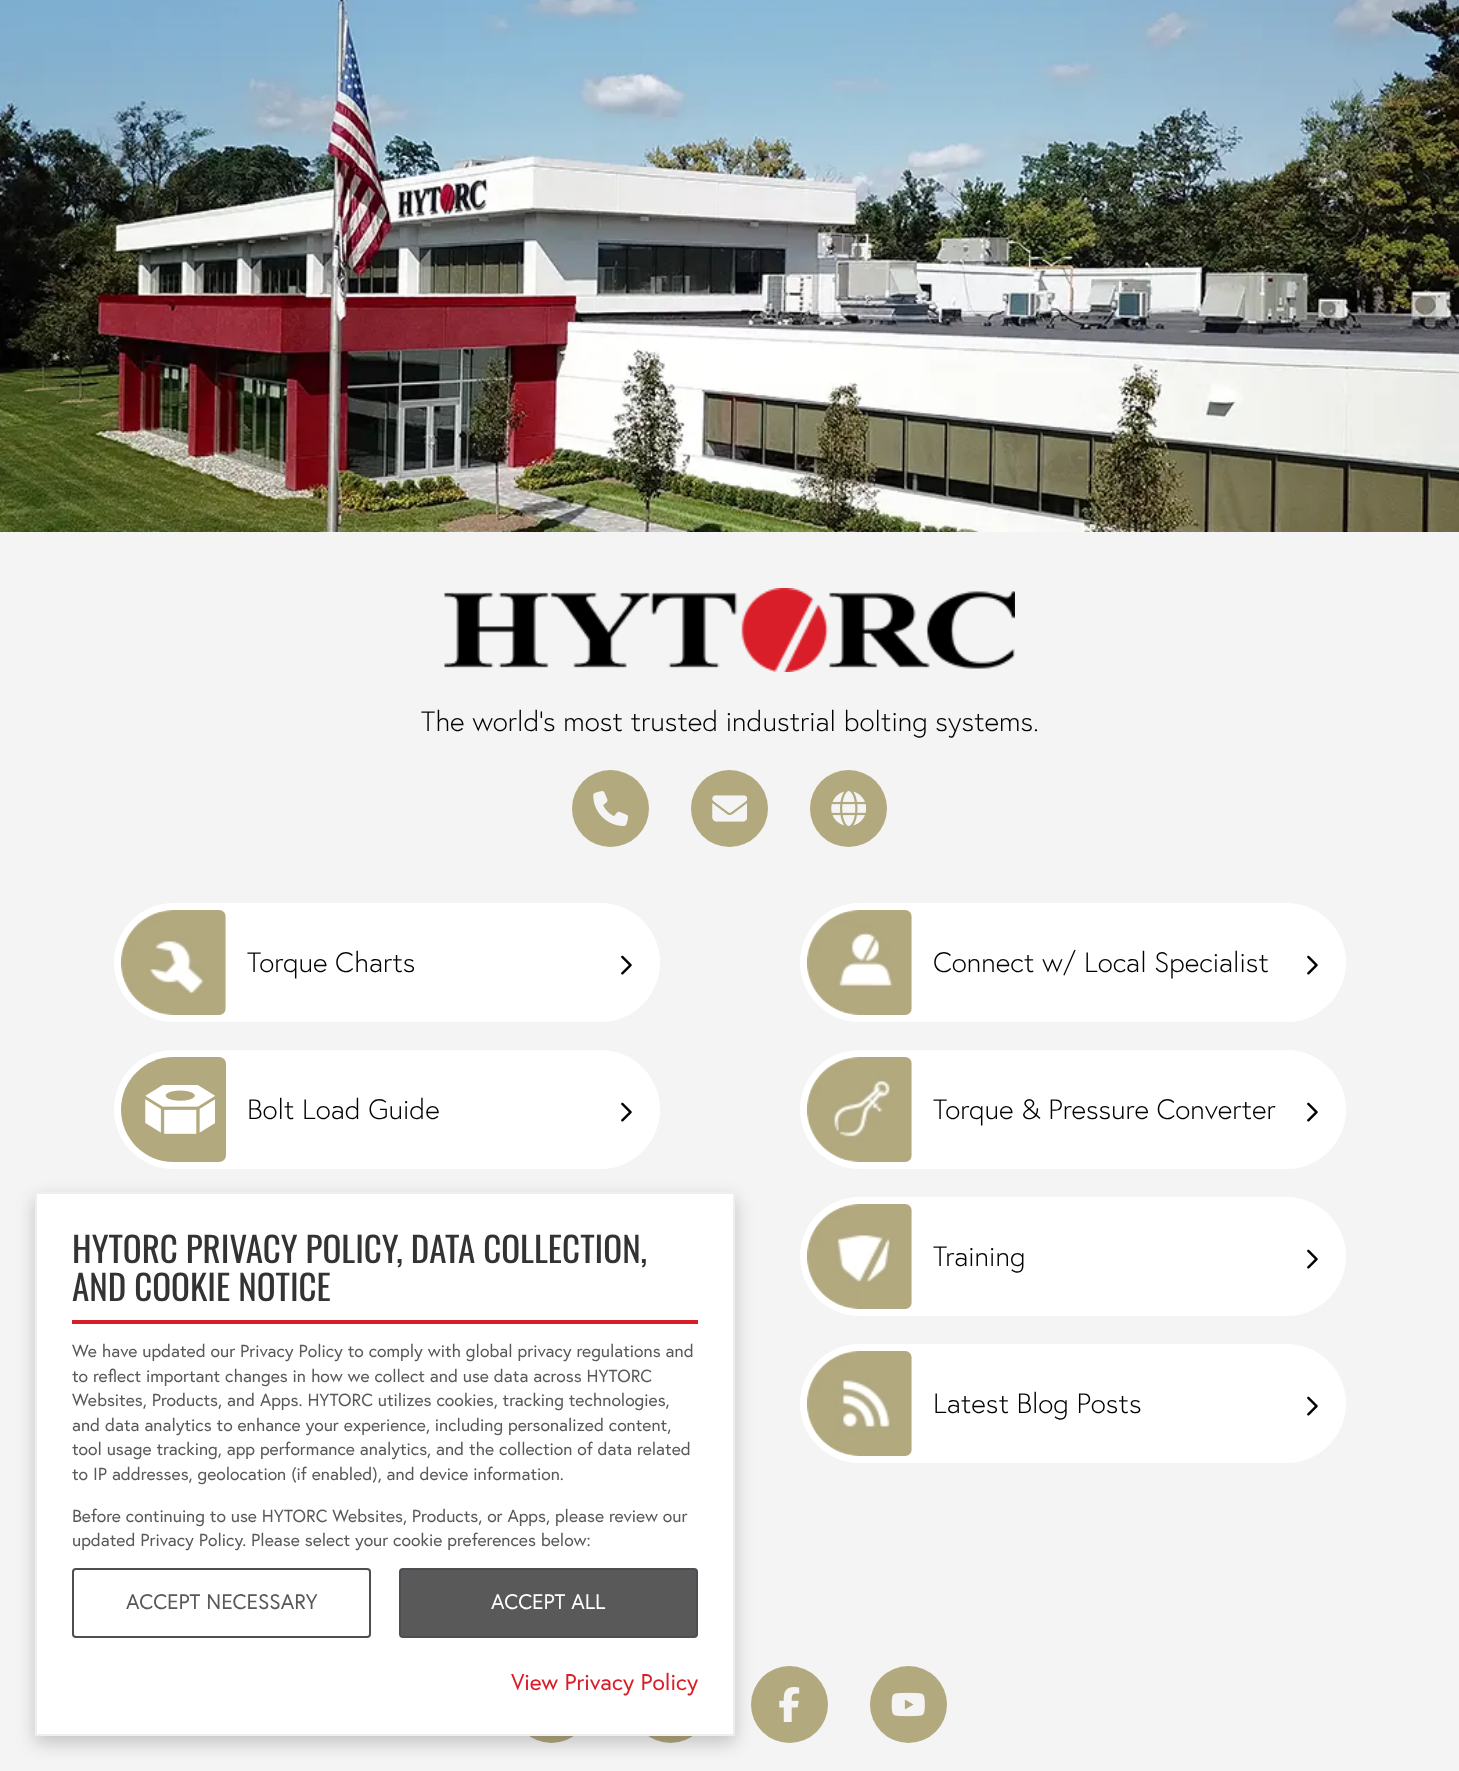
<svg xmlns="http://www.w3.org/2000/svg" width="1459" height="1771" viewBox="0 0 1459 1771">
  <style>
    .t1 { font: 300 28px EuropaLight; fill: #000; }
    .t2 { font: 35px Oswald; fill: #333; }
    .t3 { font: 17.5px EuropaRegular; fill: #595959; }
    .t4 { font: 21px EuropaRegular; fill: #595959; }
    .t5 { font: 21px EuropaRegular; fill: #fff; }
    .t6 { font: 22.75px EuropaRegular; fill: #da1e29; }
  </style>
  <rect width="100%" height="100%" fill="#f4f4f4"/>
  <image x="0" y="0" width="1459" height="532" href="images/1.png"/>
  <image x="444" y="588" width="571" height="84" href="images/2.png"/>
  <text x="421" y="731" class="t1">The world's most trusted industrial bolting systems.</text>
  <circle cx="610.5" cy="808.5" r="38.5" fill="#b2a97e"/>
  <image x="593" y="791" width="35" height="35" href="images/3.png"/>
  <circle cx="729.5" cy="808.5" r="38.5" fill="#b2a97e"/>
  <image x="712" y="795" width="35" height="27" href="images/4.png"/>
  <circle cx="848.5" cy="808.5" r="38.5" fill="#b2a97e"/>
  <image x="831" y="791" width="35" height="35" href="images/5.png"/>
  <rect x="114" y="903" width="546" height="119" rx="59.5" fill="#fff"/>
  <image x="120" y="910" width="106" height="105" href="images/6.png"/>
  <text x="247" y="972" class="t1">Torque Charts</text>
  <image x="621" y="955" width="11" height="20" href="images/7.png"/>
  <rect x="800" y="903" width="546" height="119" rx="59.5" fill="#fff"/>
  <image x="806" y="910" width="106" height="105" href="images/8.png"/>
  <text x="933" y="972" class="t1">Connect w/ Local Specialist</text>
  <image x="1307" y="955" width="11" height="20" href="images/7.png"/>
  <rect x="114" y="1050" width="546" height="119" rx="59.5" fill="#fff"/>
  <path d="M173.5 1057H219C223 1057 226 1060 226 1064V1155C226 1159 223 1162 219 1162H173.5C144.5 1162 121 1138.5 121 1109.5C121 1080.5 144.5 1057 173.5 1057Z" fill="#b2a97e"/>
  <image x="145" y="1085" width="70" height="49" href="images/9.png"/>
  <text x="247" y="1119" class="t1">Bolt Load Guide</text>
  <image x="621" y="1102" width="11" height="20" href="images/7.png"/>
  <rect x="800" y="1050" width="546" height="119" rx="59.5" fill="#fff"/>
  <image x="806" y="1057" width="106" height="105" href="images/10.png"/>
  <text x="933" y="1119" class="t1">Torque &amp; Pressure Converter</text>
  <image x="1307" y="1102" width="11" height="20" href="images/7.png"/>
  <rect x="800" y="1197" width="546" height="119" rx="59.5" fill="#fff"/>
  <image x="806" y="1204" width="106" height="105" href="images/11.png"/>
  <text x="933" y="1266" class="t1">Training</text>
  <image x="1307" y="1249" width="11" height="20" href="images/7.png"/>
  <rect x="800" y="1344" width="546" height="119" rx="59.5" fill="#fff"/>
  <image x="806" y="1351" width="106" height="105" href="images/12.png"/>
  <text x="933" y="1413" class="t1">Latest Blog Posts</text>
  <image x="1307" y="1396" width="11" height="20" href="images/7.png"/>
  <circle cx="551.5" cy="1704.5" r="38.5" fill="#b2a97e"/>
  <circle cx="670.5" cy="1704.5" r="38.5" fill="#b2a97e"/>
  <circle cx="789.5" cy="1704.5" r="38.5" fill="#b2a97e"/>
  <image x="779" y="1687" width="21" height="35" href="images/13.png"/>
  <circle cx="908.5" cy="1704.5" r="38.5" fill="#b2a97e"/>
  <image x="891" y="1692" width="34" height="25" href="images/14.png"/>
  <rect x="35" y="1199" width="700" height="544" fill="#00000033" filter="blur(9px)"/>
  <rect x="36" y="1193" width="698" height="542" fill="#fff" stroke="#eee" stroke-width="2"/>
  <rect x="72" y="1320" width="626" height="4" fill="#da1e29"/>
  <text x="72" y="1263" class="t2">HYTORC PRIVACY POLICY, DATA COLLECTION,</text>
  <text x="72" y="1301" class="t2">AND COOKIE NOTICE</text>
  <text x="72" y="1357" class="t3">We have updated our Privacy Policy to comply with global privacy regulations and</text>
  <text x="72" y="1382" class="t3">to reflect important changes in how we collect and use data across HYTORC</text>
  <text x="72" y="1406" class="t3">Websites, Products, and Apps. HYTORC utilizes cookies, tracking technologies,</text>
  <text x="72" y="1431" class="t3">and data analytics to enhance your experience, including personalized content,</text>
  <text x="72" y="1455" class="t3">tool usage tracking, app performance analytics, and the collection of data related</text>
  <text x="72" y="1480" class="t3">to IP addresses, geolocation (if enabled), and device information.</text>
  <text x="72" y="1522" class="t3">Before continuing to use HYTORC Websites, Products, or Apps, please review our</text>
  <text x="72" y="1546" class="t3">updated Privacy Policy. Please select your cookie preferences below:</text>
  <rect x="73" y="1569" width="297" height="68" rx="3" fill="none" stroke="#4b4e53" stroke-width="2"/>
  <text x="126" y="1609" class="t4">ACCEPT NECESSARY</text>
  <rect x="400" y="1569" width="297" height="68" rx="3" fill="#595959" stroke="#4b4e53" stroke-width="2"/>
  <text x="491" y="1609" class="t5">ACCEPT ALL</text>
  <text x="511" y="1690" class="t6">View Privacy Policy</text>
</svg>
